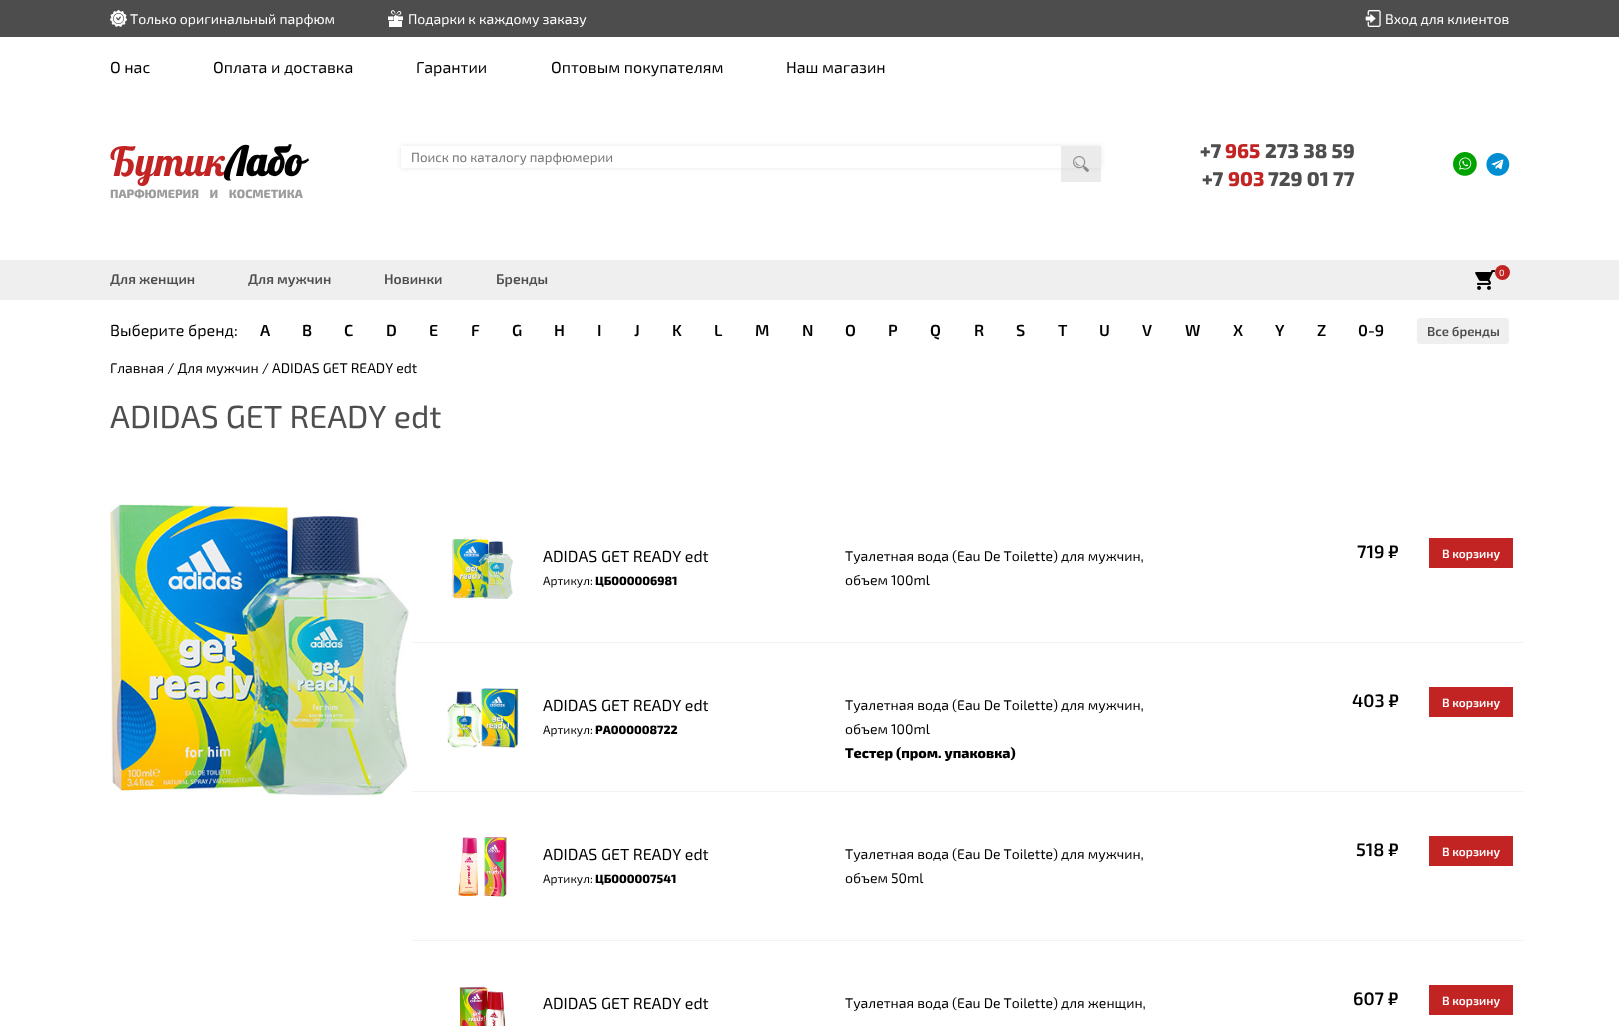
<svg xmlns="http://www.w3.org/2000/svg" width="1619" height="1026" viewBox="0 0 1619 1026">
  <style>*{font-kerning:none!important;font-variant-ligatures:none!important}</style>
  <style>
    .t1 { font: 14px 'Exo 2'; fill: #fff; }
    .t2 { font: 16px 'Exo 2'; fill: #000; }
    .t3 { font: 40px 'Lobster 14'; fill: #c22323; }
    .t4 { font: bold 40px 'Lobster 14'; fill: #000; }
    .t5 { font: 800 12px 'Exo 2'; fill: #9c9c9c; }
    .t6 { font: 13.3px 'Exo 2'; fill: #757575; }
    .t7 { font: 800 20px 'Exo 2'; fill: #4e4e4e; }
    .t8 { font: 800 20px 'Exo 2'; fill: #c22323; }
    .t9 { font: 9px 'Exo 2'; fill: #fff; }
    .t10 { font: 600 14px 'Exo 2'; fill: #4e4e4e; }
    .t11 { font: 600 16px 'Exo 2'; fill: #000; }
    .t12 { font: 600 13px 'Exo 2'; fill: #4e4e4e; }
    .t13 { font: 14px 'Exo 2'; fill: #000; }
    .t14 { font: 32px 'Exo 2'; fill: #4e4e4e; }
    .t15 { font: 12px 'Exo 2'; fill: #000; }
    .t16 { font: 800 12px 'Exo 2'; fill: #000; }
    .t17 { font: 600 18px 'Exo 2'; fill: #000; }
    .t18 { font: 600 12px 'Exo 2'; fill: #fff; }
    .t19 { font: 800 14px 'Exo 2'; fill: #000; }
  </style>
  <defs>
    <clipPath id="clip1"><path d="M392 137H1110V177H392ZM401 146H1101V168H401Z" clip-rule="evenodd"/></clipPath>
  </defs>
  <rect width="100%" height="100%" fill="#fff"/>
  <rect x="0" y="0" width="1619" height="37" fill="#4d4d4d"/>
  <image x="110" y="10" width="17" height="17" href="images/1.png"/>
  <text x="130" y="24" class="t1">Только оригинальный парфюм</text>
  <image x="388" y="10" width="15" height="17" href="images/2.png"/>
  <text x="408" y="24" class="t1">Подарки к каждому заказу</text>
  <image x="1365" y="10" width="16" height="17" href="images/3.png"/>
  <text x="1385" y="24" class="t1">Вход для клиентов</text>
  <text x="110" y="73" class="t2">О нас</text>
  <text x="213" y="73" class="t2">Оплата и доставка</text>
  <text x="416" y="73" class="t2">Гарантии</text>
  <text x="551" y="73" class="t2">Оптовым покупателям</text>
  <text x="786" y="73" class="t2">Наш магазин</text>
  <text x="110" y="176" class="t3">Бутик</text>
  <text x="225" y="176" class="t4">Лабо</text>
  <text x="110" y="198" word-spacing="8" class="t5">ПАРФЮМЕРИЯ И КОСМЕТИКА</text>
  <g clip-path="url(#clip1)">
    <rect x="401" y="146" width="700" height="22" fill="#0000001a" filter="blur(2.5px)"/>
  </g>
  <text x="411" y="162" class="t6">Поиск по каталогу парфюмерии</text>
  <rect x="1061" y="146" width="40" height="36" fill="#cccccc66"/>
  <image x="1073" y="156" width="16" height="16" href="images/4.png"/>
  <text x="1200" y="158" class="t7">+7</text>
  <text x="1225" y="158" class="t8">965</text>
  <text x="1265" y="158" class="t7">273 38 59</text>
  <text x="1202" y="186" class="t7">+7</text>
  <text x="1228" y="186" class="t8">903</text>
  <text x="1268" y="186" class="t7">729 01 77</text>
  <image x="1453" y="152" width="24" height="24" href="images/5.png"/>
  <image x="1486" y="153" width="24" height="23" href="images/6.png"/>
  <rect x="0" y="260" width="1619" height="40" fill="#efefef"/>
  <image x="1475" y="270" width="20" height="20" href="images/7.png"/>
  <circle cx="1502.5" cy="272.5" r="7.5" fill="#c22323"/>
  <text x="1499" y="276" class="t9">0</text>
  <text x="110" y="284" class="t10">Для женщин</text>
  <text x="248" y="284" class="t10">Для мужчин</text>
  <text x="384" y="284" class="t10">Новинки</text>
  <text x="496" y="284" class="t10">Бренды</text>
  <text x="110" y="336" class="t2">Выберите бренд:</text>
  <text x="260" y="336" class="t11">A</text>
  <text x="302" y="336" class="t11">B</text>
  <text x="344" y="336" class="t11">C</text>
  <text x="386" y="336" class="t11">D</text>
  <text x="429" y="336" class="t11">E</text>
  <text x="471" y="336" class="t11">F</text>
  <text x="512" y="336" class="t11">G</text>
  <text x="554" y="336" class="t11">H</text>
  <text x="597" y="336" class="t11">I</text>
  <text x="634" y="336" class="t11">J</text>
  <text x="672" y="336" class="t11">K</text>
  <text x="714" y="336" class="t11">L</text>
  <text x="755" y="336" class="t11">M</text>
  <text x="802" y="336" class="t11">N</text>
  <text x="845" y="336" class="t11">O</text>
  <text x="888" y="336" class="t11">P</text>
  <text x="930" y="336" class="t11">Q</text>
  <text x="974" y="336" class="t11">R</text>
  <text x="1016" y="336" class="t11">S</text>
  <text x="1058" y="336" class="t11">T</text>
  <text x="1099" y="336" class="t11">U</text>
  <text x="1142" y="336" class="t11">V</text>
  <text x="1185" y="336" class="t11">W</text>
  <text x="1233" y="336" class="t11">X</text>
  <text x="1275" y="336" class="t11">Y</text>
  <text x="1317" y="336" class="t11">Z</text>
  <text x="1358" y="336" class="t11">0-9</text>
  <rect x="1417" y="318" width="92" height="26" rx="3" fill="#efefef"/>
  <text x="1427" y="336" class="t12">Все бренды</text>
  <text x="110" y="373" class="t13">Главная / Для мужчин / ADIDAS GET READY edt</text>
  <text x="110" y="428" class="t14">ADIDAS GET READY edt</text>
  <image x="110" y="504" width="299" height="292" href="images/8.png"/>
  <rect x="413" y="642" width="1110" height="1" fill="#f2f2f2"/>
  <text x="543" y="562" class="t2">ADIDAS GET READY edt</text>
  <text x="543" y="585" class="t15">Артикул:</text>
  <rect x="542" y="561" width="1" height="24" fill="#fff"/>
  <image x="452" y="539" width="61" height="60" href="images/9.png"/>
  <text x="595" y="585" class="t16">ЦБ000006981</text>
  <text x="845" y="561" class="t13">Туалетная вода (Eau De Toilette)</text>
  <text x="1061" y="561" class="t13">для мужчин,</text>
  <text x="845" y="585" class="t13">объем 100ml</text>
  <text x="1357" y="558" class="t17">719 ₽</text>
  <rect x="1429" y="538" width="84" height="30" fill="#c22323"/>
  <text x="1442" y="558" class="t18">В корзину</text>
  <rect x="413" y="791" width="1110" height="1" fill="#f2f2f2"/>
  <text x="543" y="711" class="t2">ADIDAS GET READY edt</text>
  <text x="543" y="734" class="t15">Артикул:</text>
  <rect x="542" y="710" width="1" height="24" fill="#fff"/>
  <image x="447" y="688" width="72" height="60" href="images/10.png"/>
  <text x="595" y="734" class="t16">РА000008722</text>
  <text x="845" y="710" class="t13">Туалетная вода (Eau De Toilette)</text>
  <text x="1061" y="710" class="t13">для мужчин,</text>
  <text x="845" y="734" class="t13">объем 100ml</text>
  <text x="845" y="758" class="t19">Тестер (пром. упаковка)</text>
  <text x="1352" y="707" class="t17">403 ₽</text>
  <rect x="1429" y="687" width="84" height="30" fill="#c22323"/>
  <text x="1442" y="707" class="t18">В корзину</text>
  <rect x="413" y="940" width="1110" height="1" fill="#f2f2f2"/>
  <text x="543" y="860" class="t2">ADIDAS GET READY edt</text>
  <text x="543" y="883" class="t15">Артикул:</text>
  <rect x="542" y="859" width="1" height="24" fill="#fff"/>
  <image x="458" y="837" width="49" height="60" href="images/11.png"/>
  <text x="595" y="883" class="t16">ЦБ000007541</text>
  <text x="845" y="859" class="t13">Туалетная вода (Eau De Toilette)</text>
  <text x="1061" y="859" class="t13">для мужчин,</text>
  <text x="845" y="883" class="t13">объем 50ml</text>
  <text x="1356" y="856" class="t17">518 ₽</text>
  <rect x="1429" y="836" width="84" height="30" fill="#c22323"/>
  <text x="1442" y="856" class="t18">В корзину</text>
  <text x="543" y="1009" class="t2">ADIDAS GET READY edt</text>
  <rect x="542" y="1008" width="1" height="1" fill="#fff"/>
  <image x="459" y="986" width="47" height="40" href="images/12.png"/>
  <text x="845" y="1008" class="t13">Туалетная вода (Eau De Toilette)</text>
  <text x="1061" y="1008" class="t13">для женщин,</text>
  <text x="1353" y="1005" class="t17">607 ₽</text>
  <rect x="1429" y="985" width="84" height="30" fill="#c22323"/>
  <text x="1442" y="1005" class="t18">В корзину</text>
</svg>
